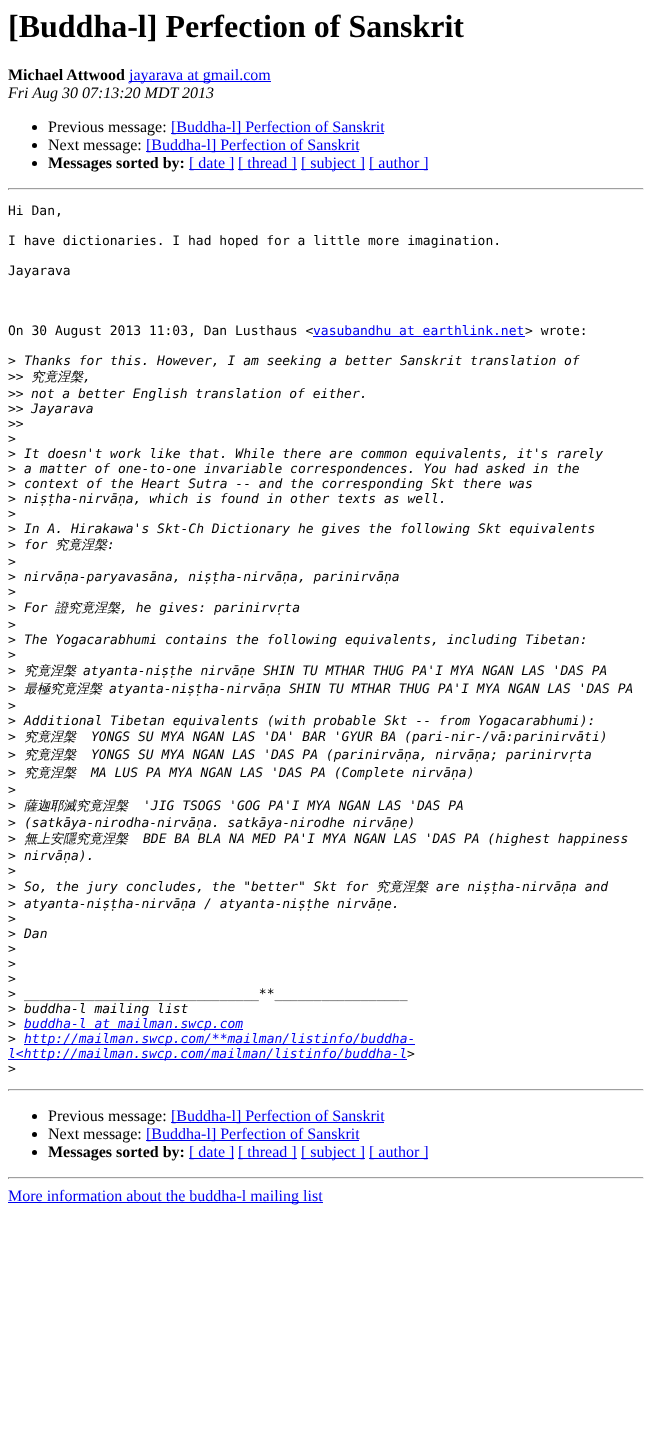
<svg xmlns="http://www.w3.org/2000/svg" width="652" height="1431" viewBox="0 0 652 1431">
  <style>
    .t1 { font: bold 32px Liberation Serif; fill: #000; }
    .t2 { font: bold 16px Liberation Serif; fill: #000; }
    .t3 { font: 16px Liberation Serif; fill: #00e; }
    .t4 { font: italic 16px Liberation Serif; fill: #000; }
    .t5 { font: 16px Liberation Serif; fill: #000; }
    .t6 { font: 13px DejaVu Sans Mono; fill: #000; }
    .t7 { font: 13px DejaVu Sans Mono; fill: #00e; }
    .t8 { font: italic 13px DejaVu Sans Mono; fill: #000; }
    .t9 { font: italic 500 13px WenQuanYi Zen Hei; fill: #000; }
    .t10 { font: italic 13px DejaVu Sans Mono; fill: #00e; }
  </style>
  <rect width="100%" height="100%" fill="#fff"/>
  <text x="8" y="37" class="t1">[Buddha-l] Perfection of Sanskrit</text>
  <text x="8" y="80" class="t2">Michael Attwood</text>
  <rect x="129" y="81" width="142" height="1" fill="#00e"/>
  <text x="129" y="80" class="t3">jayarava at gmail.com</text>
  <text x="8" y="98" class="t4">Fri Aug 30 07:13:20 MDT 2013</text>
  <circle cx="34.5" cy="127.5" r="2.5" fill="#000"/>
  <text x="48" y="132" class="t5">Previous message:</text>
  <rect x="171" y="133" width="213" height="1" fill="#00e"/>
  <text x="171" y="132" class="t3">[Buddha-l] Perfection of Sanskrit</text>
  <circle cx="34.5" cy="145.5" r="2.5" fill="#000"/>
  <text x="48" y="150" class="t5">Next message:</text>
  <rect x="146" y="151" width="213" height="1" fill="#00e"/>
  <text x="146" y="150" class="t3">[Buddha-l] Perfection of Sanskrit</text>
  <circle cx="34.5" cy="163.5" r="2.5" fill="#000"/>
  <text x="48" y="168" class="t2">Messages sorted by:</text>
  <rect x="189" y="169" width="45" height="1" fill="#00e"/>
  <text x="189" y="168" class="t3">[ date ]</text>
  <rect x="238" y="169" width="59" height="1" fill="#00e"/>
  <text x="238" y="168" class="t3">[ thread ]</text>
  <rect x="301" y="169" width="64" height="1" fill="#00e"/>
  <text x="301" y="168" class="t3">[ subject ]</text>
  <rect x="369" y="169" width="59" height="1" fill="#00e"/>
  <text x="369" y="168" class="t3">[ author ]</text>
  <rect x="8" y="188" width="636" height="1" fill="#9f9f9f"/>
  <rect x="643" y="188" width="1" height="2" fill="#eee"/>
  <rect x="8" y="189" width="636" height="1" fill="#eee"/>
  <rect x="8" y="188" width="1" height="2" fill="#9f9f9f"/>
  <text x="8" y="215" class="t6">Hi Dan,</text>
  <text x="8" y="245" class="t6">I have dictionaries. I had hoped for a little more imagination.</text>
  <text x="8" y="275" class="t6">Jayarava</text>
  <text x="8" y="335" class="t6">On 30 August 2013 11:03, Dan Lusthaus &lt;</text>
  <text x="313" y="335" class="t7">vasubandhu at earthlink.net</text>
  <rect x="313" y="336" width="212" height="1" fill="#00e"/>
  <text x="525" y="335" class="t6">&gt; wrote:</text>
  <text x="8" y="365" class="t6">&gt;</text>
  <text x="24" y="365" class="t8">Thanks for this. However, I am seeking a better Sanskrit translation of</text>
  <text x="8" y="381" class="t6">&gt;&gt;</text>
  <text x="31" y="381" class="t9">究竟涅槃</text>
  <text x="83" y="381" class="t8">,</text>
  <text x="8" y="398" class="t6">&gt;&gt;</text>
  <text x="31" y="398" class="t8">not a better English translation of either.</text>
  <text x="8" y="413" class="t6">&gt;&gt;</text>
  <text x="31" y="413" class="t8">Jayarava</text>
  <text x="8" y="428" class="t6">&gt;&gt;</text>
  <text x="8" y="443" class="t6">&gt;</text>
  <text x="8" y="458" class="t6">&gt;</text>
  <text x="24" y="458" class="t8">It doesn't work like that. While there are common equivalents, it's rarely</text>
  <text x="8" y="473" class="t6">&gt;</text>
  <text x="24" y="473" class="t8">a matter of one-to-one invariable correspondences. You had asked in the</text>
  <text x="8" y="488" class="t6">&gt;</text>
  <text x="24" y="488" class="t8">context of the Heart Sutra -- and the corresponding Skt there was</text>
  <text x="8" y="503" class="t6">&gt;</text>
  <text x="24" y="503" class="t8">niṣṭha-nirvāṇa, which is found in other texts as well.</text>
  <text x="8" y="518" class="t6">&gt;</text>
  <text x="8" y="533" class="t6">&gt;</text>
  <text x="24" y="533" class="t8">In A. Hirakawa's Skt-Ch Dictionary he gives the following Skt equivalents</text>
  <text x="8" y="549" class="t6">&gt;</text>
  <text x="24" y="549" class="t8">for</text>
  <text x="55" y="549" class="t9">究竟涅槃</text>
  <text x="107" y="549" class="t8">:</text>
  <text x="8" y="566" class="t6">&gt;</text>
  <text x="8" y="581" class="t6">&gt;</text>
  <text x="24" y="581" class="t8">nirvāṇa-paryavasāna, niṣṭha-nirvāṇa, parinirvāṇa</text>
  <text x="8" y="596" class="t6">&gt;</text>
  <text x="8" y="612" class="t6">&gt;</text>
  <text x="24" y="612" class="t8">For</text>
  <text x="55" y="612" class="t9">證究竟涅槃</text>
  <text x="120" y="612" class="t8">, he gives: parinirvṛta</text>
  <text x="8" y="629" class="t6">&gt;</text>
  <text x="8" y="644" class="t6">&gt;</text>
  <text x="24" y="644" class="t8">The Yogacarabhumi contains the following equivalents, including Tibetan:</text>
  <text x="8" y="659" class="t6">&gt;</text>
  <text x="8" y="675" class="t6">&gt;</text>
  <text x="24" y="675" class="t9">究竟涅槃</text>
  <text x="83" y="675" class="t8">atyanta-niṣṭhe nirvāṇe SHIN TU MTHAR THUG PA'I MYA NGAN LAS 'DAS PA</text>
  <text x="8" y="693" class="t6">&gt;</text>
  <text x="24" y="693" class="t9">最極究竟涅槃</text>
  <text x="109" y="693" class="t8">atyanta-niṣṭha-nirvāṇa SHIN TU MTHAR THUG PA'I MYA NGAN LAS 'DAS PA</text>
  <text x="8" y="710" class="t6">&gt;</text>
  <text x="8" y="725" class="t6">&gt;</text>
  <text x="24" y="725" class="t8">Additional Tibetan equivalents (with probable Skt -- from Yogacarabhumi):</text>
  <text x="8" y="741" class="t6">&gt;</text>
  <text x="24" y="741" class="t9">究竟涅槃</text>
  <text x="91" y="741" class="t8">YONGS SU MYA NGAN LAS 'DA' BAR 'GYUR BA (pari-nir-/vā:parinirvāti)</text>
  <text x="8" y="759" class="t6">&gt;</text>
  <text x="24" y="759" class="t9">究竟涅槃</text>
  <text x="91" y="759" class="t8">YONGS SU MYA NGAN LAS 'DAS PA (parinirvāṇa, nirvāṇa; parinirvṛta</text>
  <text x="8" y="777" class="t6">&gt;</text>
  <text x="24" y="777" class="t9">究竟涅槃</text>
  <text x="91" y="777" class="t8">MA LUS PA MYA NGAN LAS 'DAS PA (Complete nirvāṇa)</text>
  <text x="8" y="794" class="t6">&gt;</text>
  <text x="8" y="810" class="t6">&gt;</text>
  <text x="24" y="810" class="t9">薩迦耶滅究竟涅槃</text>
  <text x="143" y="810" class="t8">'JIG TSOGS 'GOG PA'I MYA NGAN LAS 'DAS PA</text>
  <text x="8" y="827" class="t6">&gt;</text>
  <text x="24" y="827" class="t8">(satkāya-nirodha-nirvāṇa. satkāya-nirodhe nirvāṇe)</text>
  <text x="8" y="843" class="t6">&gt;</text>
  <text x="24" y="843" class="t9">無上安隱究竟涅槃</text>
  <text x="143" y="843" class="t8">BDE BA BLA NA MED PA'I MYA NGAN LAS 'DAS PA (highest happiness</text>
  <text x="8" y="860" class="t6">&gt;</text>
  <text x="24" y="860" class="t8">nirvāṇa).</text>
  <text x="8" y="875" class="t6">&gt;</text>
  <text x="8" y="891" class="t6">&gt;</text>
  <text x="24" y="891" class="t8">So, the jury concludes, the "better" Skt for</text>
  <text x="376" y="891" class="t9">究竟涅槃</text>
  <text x="436" y="891" class="t8">are niṣṭha-nirvāṇa and</text>
  <text x="8" y="908" class="t6">&gt;</text>
  <text x="24" y="908" class="t8">atyanta-niṣṭha-nirvāṇa / atyanta-niṣṭhe nirvāṇe.</text>
  <text x="8" y="923" class="t6">&gt;</text>
  <text x="8" y="938" class="t6">&gt;</text>
  <text x="24" y="938" class="t8">Dan</text>
  <text x="8" y="953" class="t6">&gt;</text>
  <text x="8" y="968" class="t6">&gt;</text>
  <text x="8" y="983" class="t6">&gt;</text>
  <text x="8" y="998" class="t6">&gt;</text>
  <text x="24" y="998" class="t8">______________________________**_________________</text>
  <text x="8" y="1013" class="t6">&gt;</text>
  <text x="24" y="1013" class="t8">buddha-l mailing list</text>
  <text x="8" y="1028" class="t6">&gt;</text>
  <rect x="24" y="1029" width="219" height="1" fill="#00e"/>
  <text x="24" y="1028" class="t10">buddha-l at mailman.swcp.com</text>
  <text x="8" y="1043" class="t6">&gt;</text>
  <rect x="24" y="1044" width="391" height="1" fill="#00e"/>
  <text x="24" y="1043" class="t10">http://mailman.swcp.com/**mailman/listinfo/buddha-</text>
  <rect x="8" y="1059" width="399" height="1" fill="#00e"/>
  <text x="8" y="1058" class="t10">l&lt;http://mailman.swcp.com/mailman/listinfo/buddha-l</text>
  <text x="407" y="1058" class="t8">&gt;</text>
  <text x="8" y="1073" class="t6">&gt;</text>
  <rect x="8" y="1089" width="636" height="1" fill="#9f9f9f"/>
  <rect x="643" y="1089" width="1" height="2" fill="#eee"/>
  <rect x="8" y="1090" width="636" height="1" fill="#eee"/>
  <rect x="8" y="1089" width="1" height="2" fill="#9f9f9f"/>
  <circle cx="34.5" cy="1116.5" r="2.5" fill="#000"/>
  <text x="48" y="1121" class="t5">Previous message:</text>
  <rect x="171" y="1122" width="213" height="1" fill="#00e"/>
  <text x="171" y="1121" class="t3">[Buddha-l] Perfection of Sanskrit</text>
  <circle cx="34.5" cy="1134.5" r="2.5" fill="#000"/>
  <text x="48" y="1139" class="t5">Next message:</text>
  <rect x="146" y="1140" width="213" height="1" fill="#00e"/>
  <text x="146" y="1139" class="t3">[Buddha-l] Perfection of Sanskrit</text>
  <circle cx="34.5" cy="1152.5" r="2.5" fill="#000"/>
  <text x="48" y="1157" class="t2">Messages sorted by:</text>
  <rect x="189" y="1158" width="45" height="1" fill="#00e"/>
  <text x="189" y="1157" class="t3">[ date ]</text>
  <rect x="238" y="1158" width="59" height="1" fill="#00e"/>
  <text x="238" y="1157" class="t3">[ thread ]</text>
  <rect x="301" y="1158" width="64" height="1" fill="#00e"/>
  <text x="301" y="1157" class="t3">[ subject ]</text>
  <rect x="369" y="1158" width="59" height="1" fill="#00e"/>
  <text x="369" y="1157" class="t3">[ author ]</text>
  <rect x="8" y="1177" width="636" height="1" fill="#9f9f9f"/>
  <rect x="643" y="1177" width="1" height="2" fill="#eee"/>
  <rect x="8" y="1178" width="636" height="1" fill="#eee"/>
  <rect x="8" y="1177" width="1" height="2" fill="#9f9f9f"/>
  <rect x="8" y="1202" width="315" height="1" fill="#00e"/>
  <text x="8" y="1201" class="t3">More information about the buddha-l mailing list</text>
</svg>
